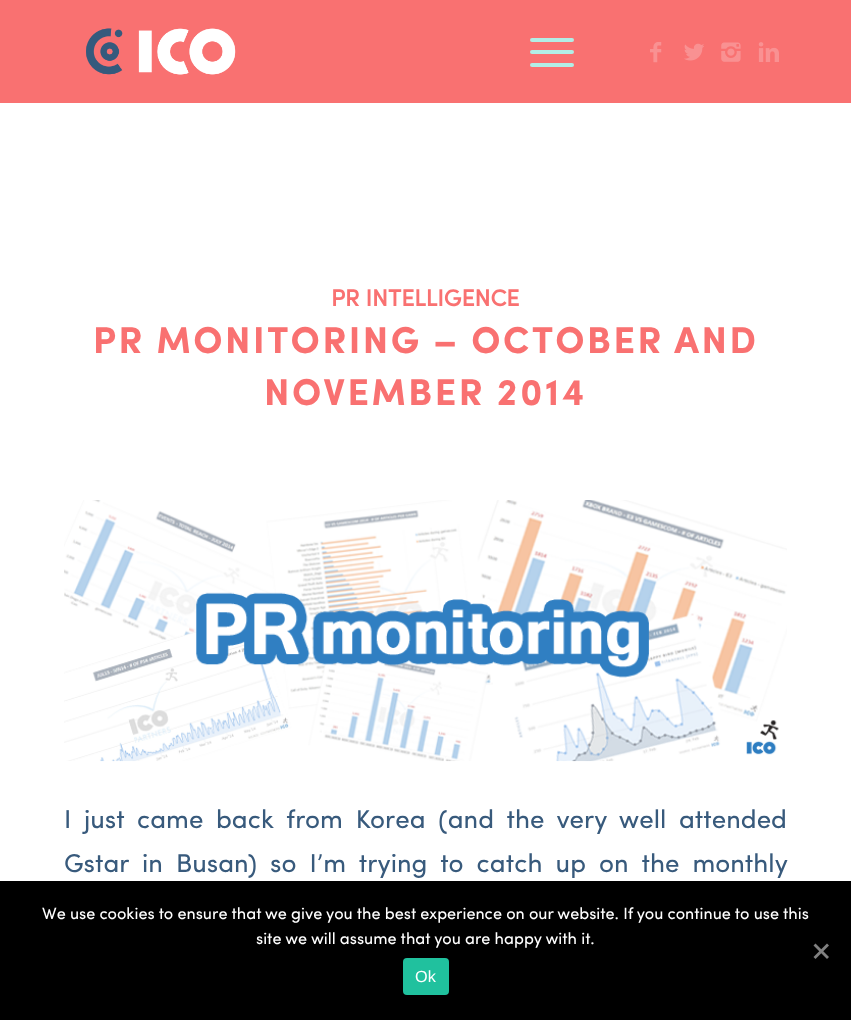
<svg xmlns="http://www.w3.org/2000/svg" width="851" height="1020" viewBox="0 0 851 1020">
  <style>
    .t1 { font: bold 23.25px 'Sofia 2'; fill: #f97171; }
    .t2 { font: bold 37.5px Sofia; letter-spacing: 2.5px; fill: #f97171; }
    .t3 { font: 25.9px Sofia; fill: #385a7c; }
    .t4 { font: 16.25px Sofia; fill: #fff; }
    .t5 { font: 16.25px Liberation Sans; fill: #fff; }
  </style>
  <rect width="100%" height="100%" fill="#fff"/>
  <rect x="0" y="0" width="851" height="103" fill="#f97171"/>
  <image x="86" y="28" width="150" height="47" href="images/1.png"/>
  <rect x="530" y="50" width="44" height="4" rx="2" fill="#b2eee6"/>
  <rect x="530" y="38" width="44" height="4" rx="2" fill="#b2eee6"/>
  <rect x="530" y="63" width="44" height="4" rx="2" fill="#b2eee6"/>
  <image x="650" y="42" width="12" height="21" href="images/2.png"/>
  <image x="684" y="43" width="20" height="18" href="images/3.png"/>
  <image x="721" y="42" width="20" height="20" href="images/4.png"/>
  <image x="758" y="42" width="21" height="20" href="images/5.png"/>
  <text x="331" y="306" class="t1">PR INTELLIGENCE</text>
  <text x="93" y="353" class="t2">PR MONITORING – OCTOBER AND</text>
  <text x="264" y="405" class="t2">NOVEMBER 2014</text>
  <image x="64" y="500" width="723" height="262" href="images/6.png"/>
  <text x="64" y="828" word-spacing="6" class="t3">I just came back from Korea (and the very well attended</text>
  <text x="64" y="872" word-spacing="6.4" class="t3">Gstar in Busan) so I’m trying to catch up on the monthly</text>
  <rect x="0" y="881" width="851" height="139" fill="#000"/>
  <text x="42" y="919" class="t4">We use cookies to ensure that we give you the best experience on our website. If you continue to use this</text>
  <text x="256" y="944" class="t4">site we will assume that you are happy with it.</text>
  <path d="M827 943.5L829 945.5L815.5 959L813.5 957Z" fill="#808080"/>
  <path d="M813.5 945.5L815.5 943.5L829 957L827 959Z" fill="#808080"/>
  <rect x="403" y="958" width="46" height="37" rx="4" fill="#20c19e"/>
  <text x="415" y="982" class="t5">Ok</text>
</svg>
